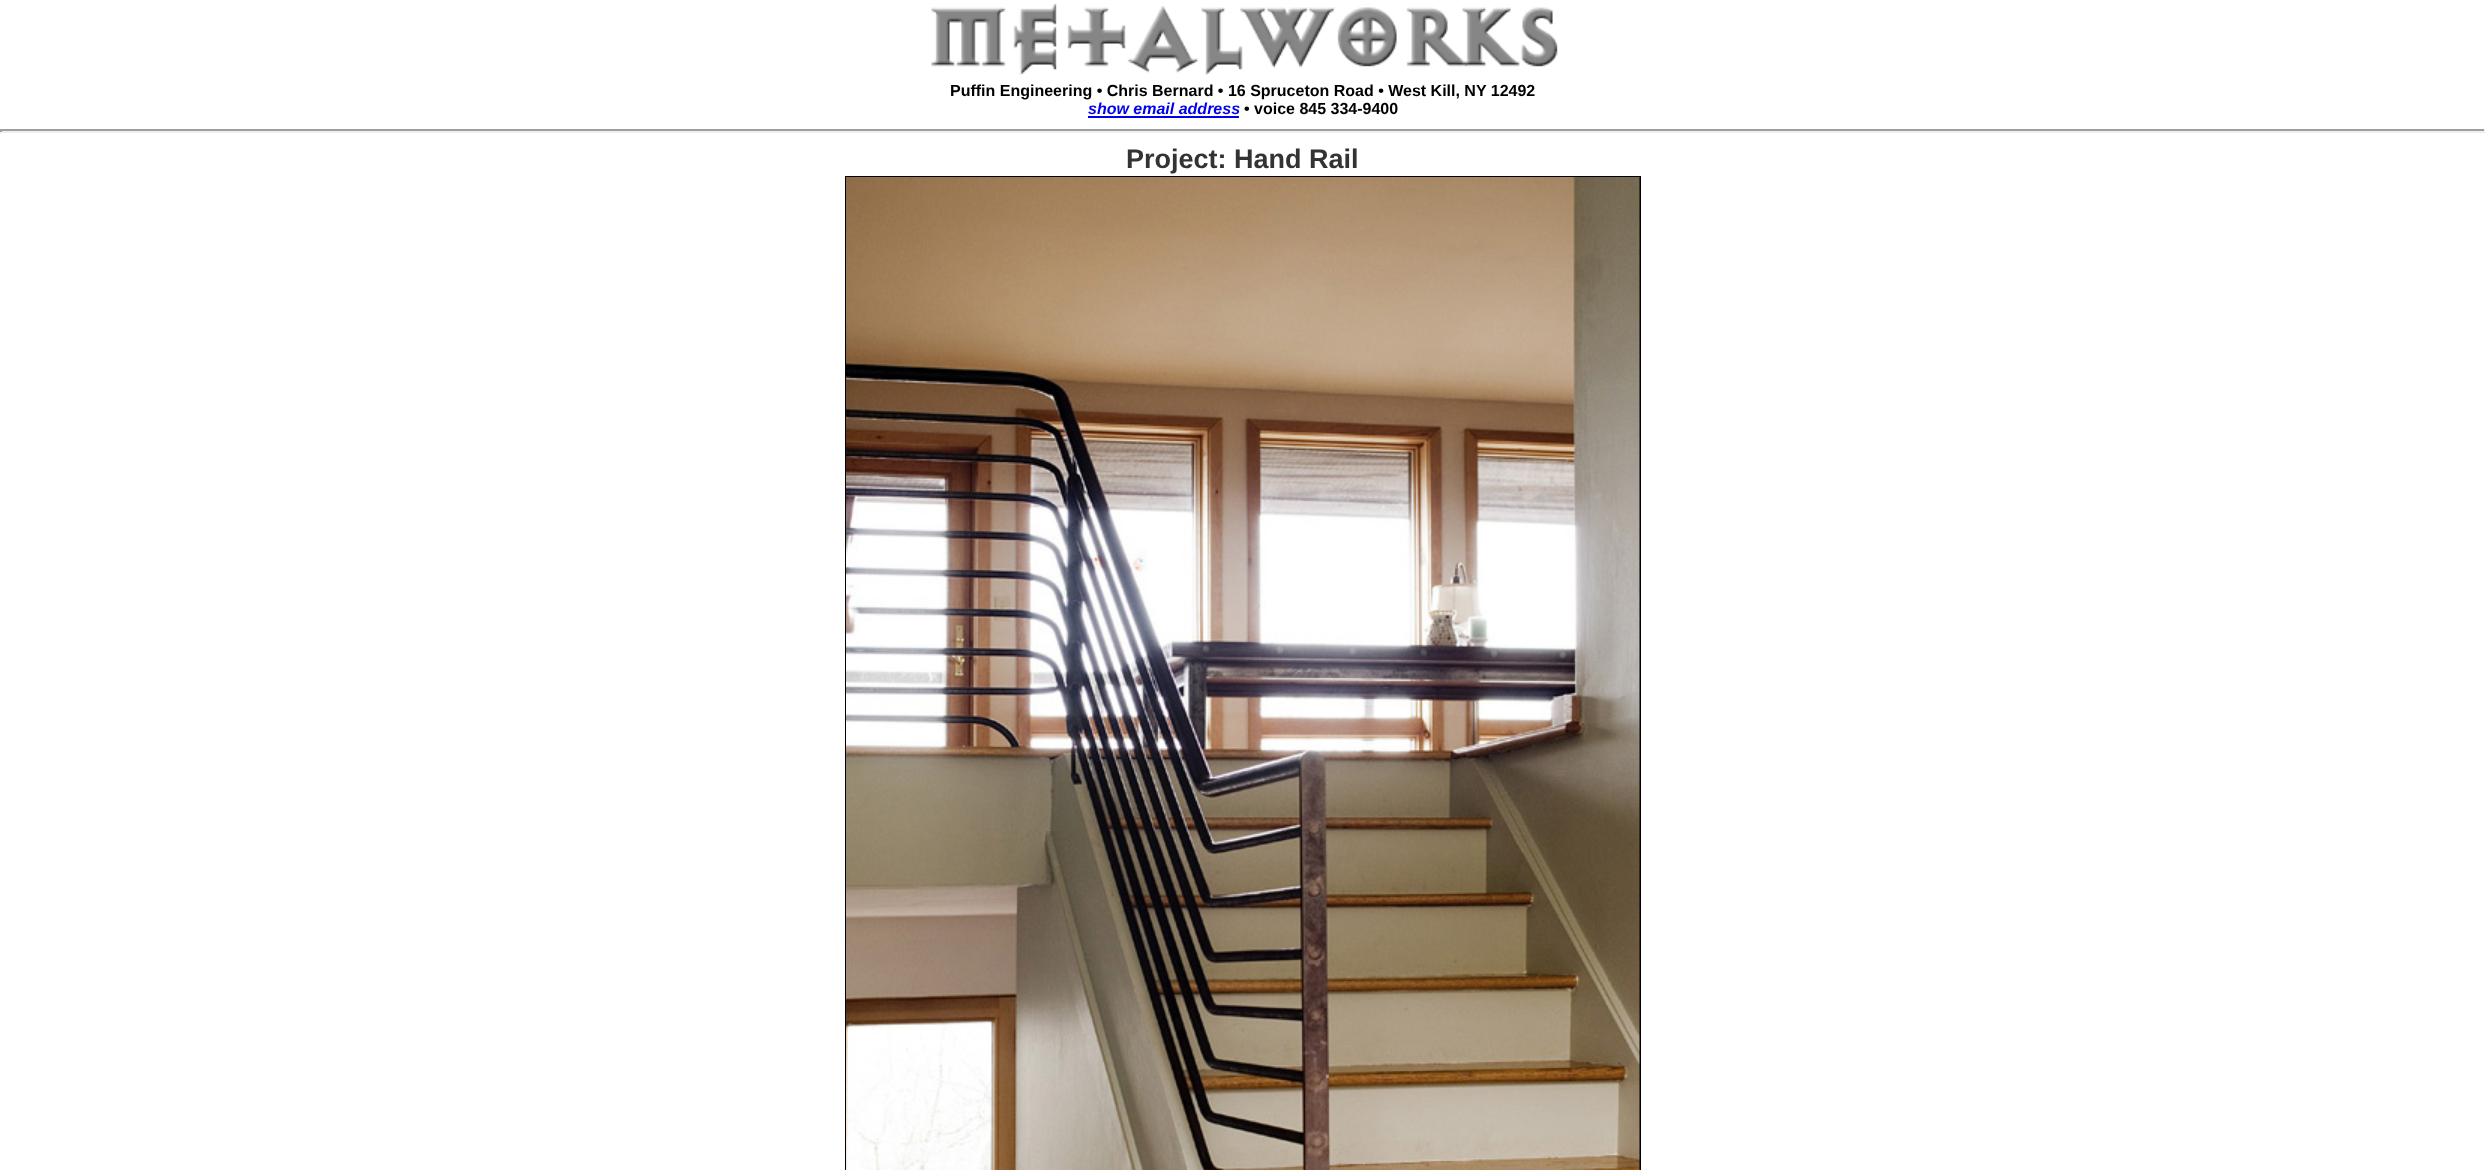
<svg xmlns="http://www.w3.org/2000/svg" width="2485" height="1170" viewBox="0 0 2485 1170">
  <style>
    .t1 { font: bold 16px Liberation Sans; fill: #000; }
    .t2 { font: italic bold 16px Liberation Sans; fill: #00e; }
    .t3 { font: bold 27px Liberation Sans; fill: #333; }
  </style>
  <rect width="100%" height="100%" fill="#fff"/>
  <image x="931" y="3" width="627" height="72" href="images/1.png"/>
  <text x="950" y="96" class="t1">Puffin Engineering • Chris Bernard • 16 Spruceton Road • West Kill, NY 12492</text>
  <text x="1088" y="114" class="t2">show email address</text>
  <rect x="1088" y="116" width="151" height="2" fill="#00e"/>
  <text x="1244" y="114" class="t1">• voice 845 334-9400</text>
  <rect x="0" y="129" width="2485" height="2" fill="#9f9f9f"/>
  <rect x="2484" y="129" width="1" height="3" fill="#eee"/>
  <rect x="0" y="131" width="2485" height="2" fill="#eee"/>
  <rect x="0" y="129" width="2" height="3" fill="#9f9f9f"/>
  <text x="1126" y="168" class="t3">Project: Hand Rail</text>
  <rect x="846" y="177" width="794" height="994" fill="none" stroke="#000" stroke-width="2"/>
  <image x="846" y="177" width="794" height="993" href="images/2.png"/>
</svg>
